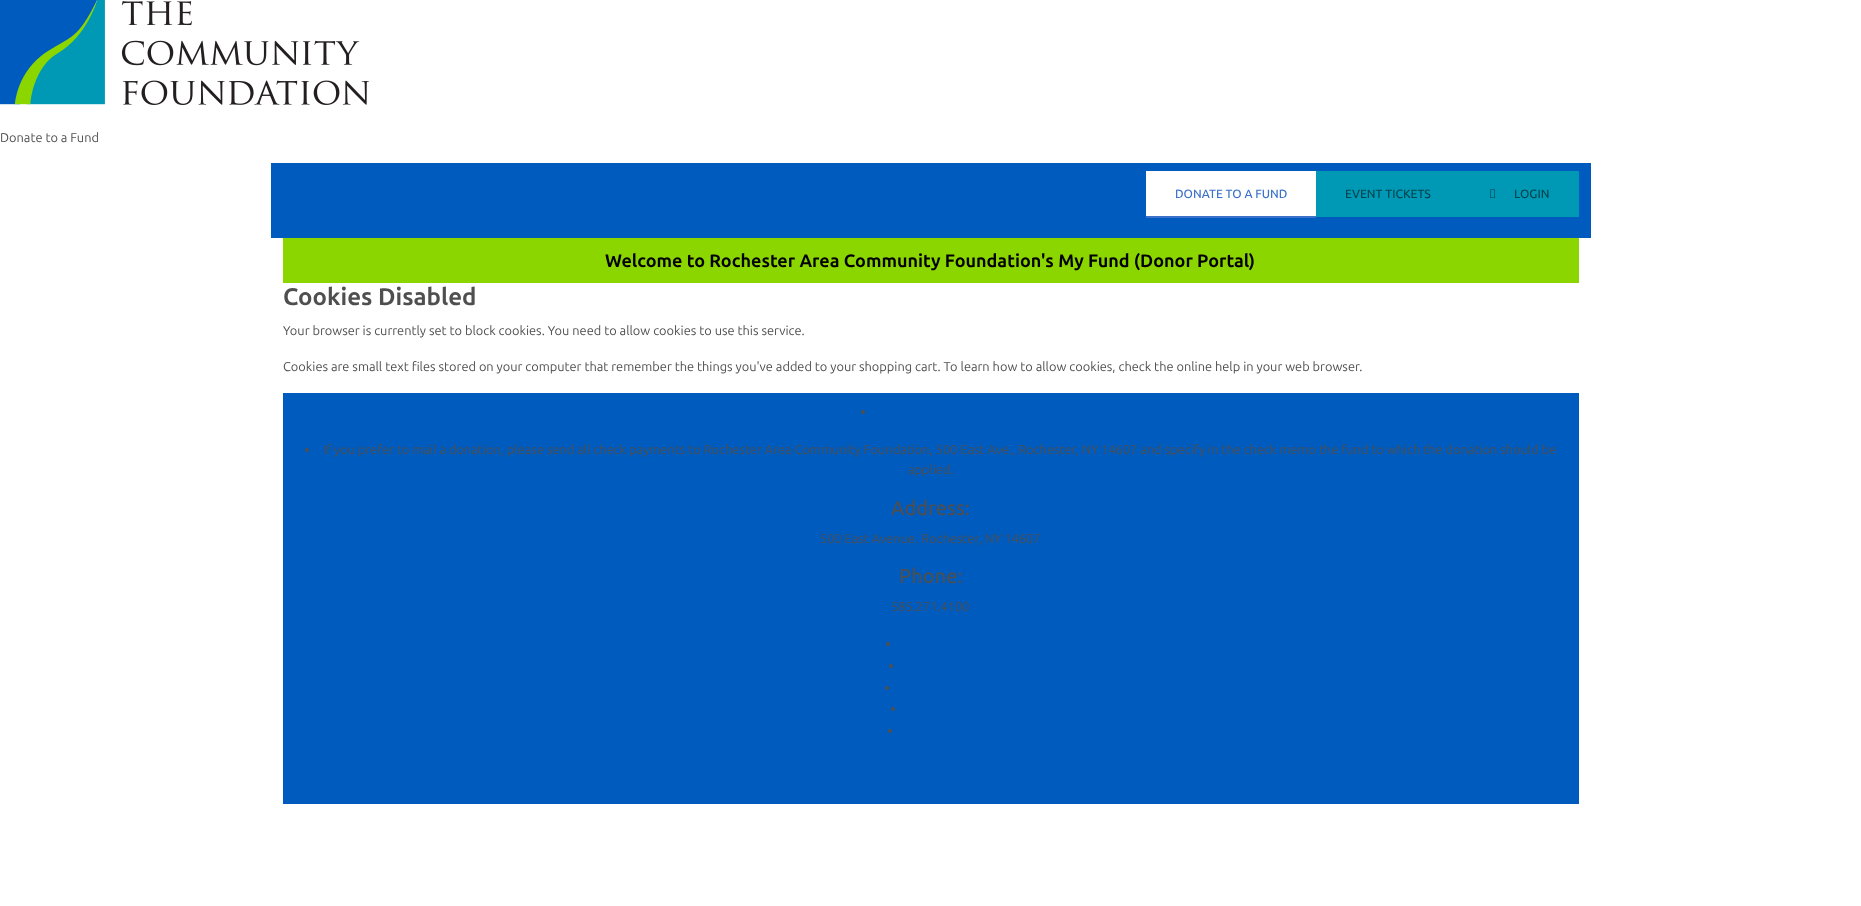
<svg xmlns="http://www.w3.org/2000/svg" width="1861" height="906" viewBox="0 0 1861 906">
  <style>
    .t1 { font: 12.8px Ubuntu; fill: #4f4f4f; }
    .t2 { font: 500 12px Ubuntu; fill: #3b71ca; }
    .t3 { font: 500 12px Ubuntu; fill: #004551; }
    .t4 { font: bold 18px Ubuntu; fill: #000; }
    .t5 { font: bold 24px Ubuntu; fill: #4f4f4f; }
    .t6 { font: 500 20px Ubuntu; fill: #4f4f4f; }
  </style>
  <rect width="100%" height="100%" fill="#fff"/>
  <image x="0" y="0" width="369" height="105" href="images/1.png"/>
  <text x="0" y="142" class="t1">Donate to a Fund</text>
  <rect x="271" y="163" width="1320" height="75" fill="#005bbf"/>
  <rect x="1146" y="171" width="170" height="45" fill="#fff"/>
  <rect x="1146" y="216" width="170" height="2" fill="#3b71ca"/>
  <text x="1175" y="198" class="t2">DONATE TO A FUND</text>
  <rect x="1316" y="171" width="263" height="46" fill="#0099b5"/>
  <text x="1345" y="198" class="t3">EVENT TICKETS</text>
  <image x="1490" y="189" width="6" height="9" href="images/2.png"/>
  <text x="1514" y="198" class="t3">LOGIN</text>
  <rect x="283" y="238" width="1296" height="45" fill="#8cd600"/>
  <text x="605" y="267" class="t4">Welcome to Rochester Area Community Foundation's My Fund (Donor Portal)</text>
  <text x="283" y="305" class="t5">Cookies Disabled</text>
  <text x="283" y="335" class="t1">Your browser is currently set to block cookies. You need to allow cookies to use this service.</text>
  <text x="283" y="371" class="t1">Cookies are small text files stored on your computer that remember the things you've added to your shopping cart. To learn how to allow cookies, check the online help in your web browser.</text>
  <rect x="283" y="393" width="1296" height="411" fill="#005bbf"/>
  <circle cx="863" cy="412" r="2" fill="#4f4f4f"/>
  <circle cx="307" cy="450" r="2" fill="#4f4f4f"/>
  <text x="323" y="454" class="t1">If you prefer to mail a donation, please send all check payments to Rochester Area Community Foundation, 500 East Ave., Rochester, NY 14607 and specify in the check memo the fund to which the donation should be</text>
  <text x="908" y="474" class="t1">applied.</text>
  <text x="891" y="515" class="t6">Address:</text>
  <text x="820" y="543" class="t1">500 East Avenue. Rochester, NY 14607</text>
  <text x="899" y="583" class="t6">Phone:</text>
  <text x="891" y="611" class="t1">585.271.4100</text>
  <circle cx="888" cy="644" r="2" fill="#4f4f4f"/>
  <circle cx="891" cy="666" r="2" fill="#4f4f4f"/>
  <circle cx="887" cy="688" r="2" fill="#4f4f4f"/>
  <circle cx="893" cy="709" r="2" fill="#4f4f4f"/>
  <circle cx="890" cy="731" r="2" fill="#4f4f4f"/>
</svg>
